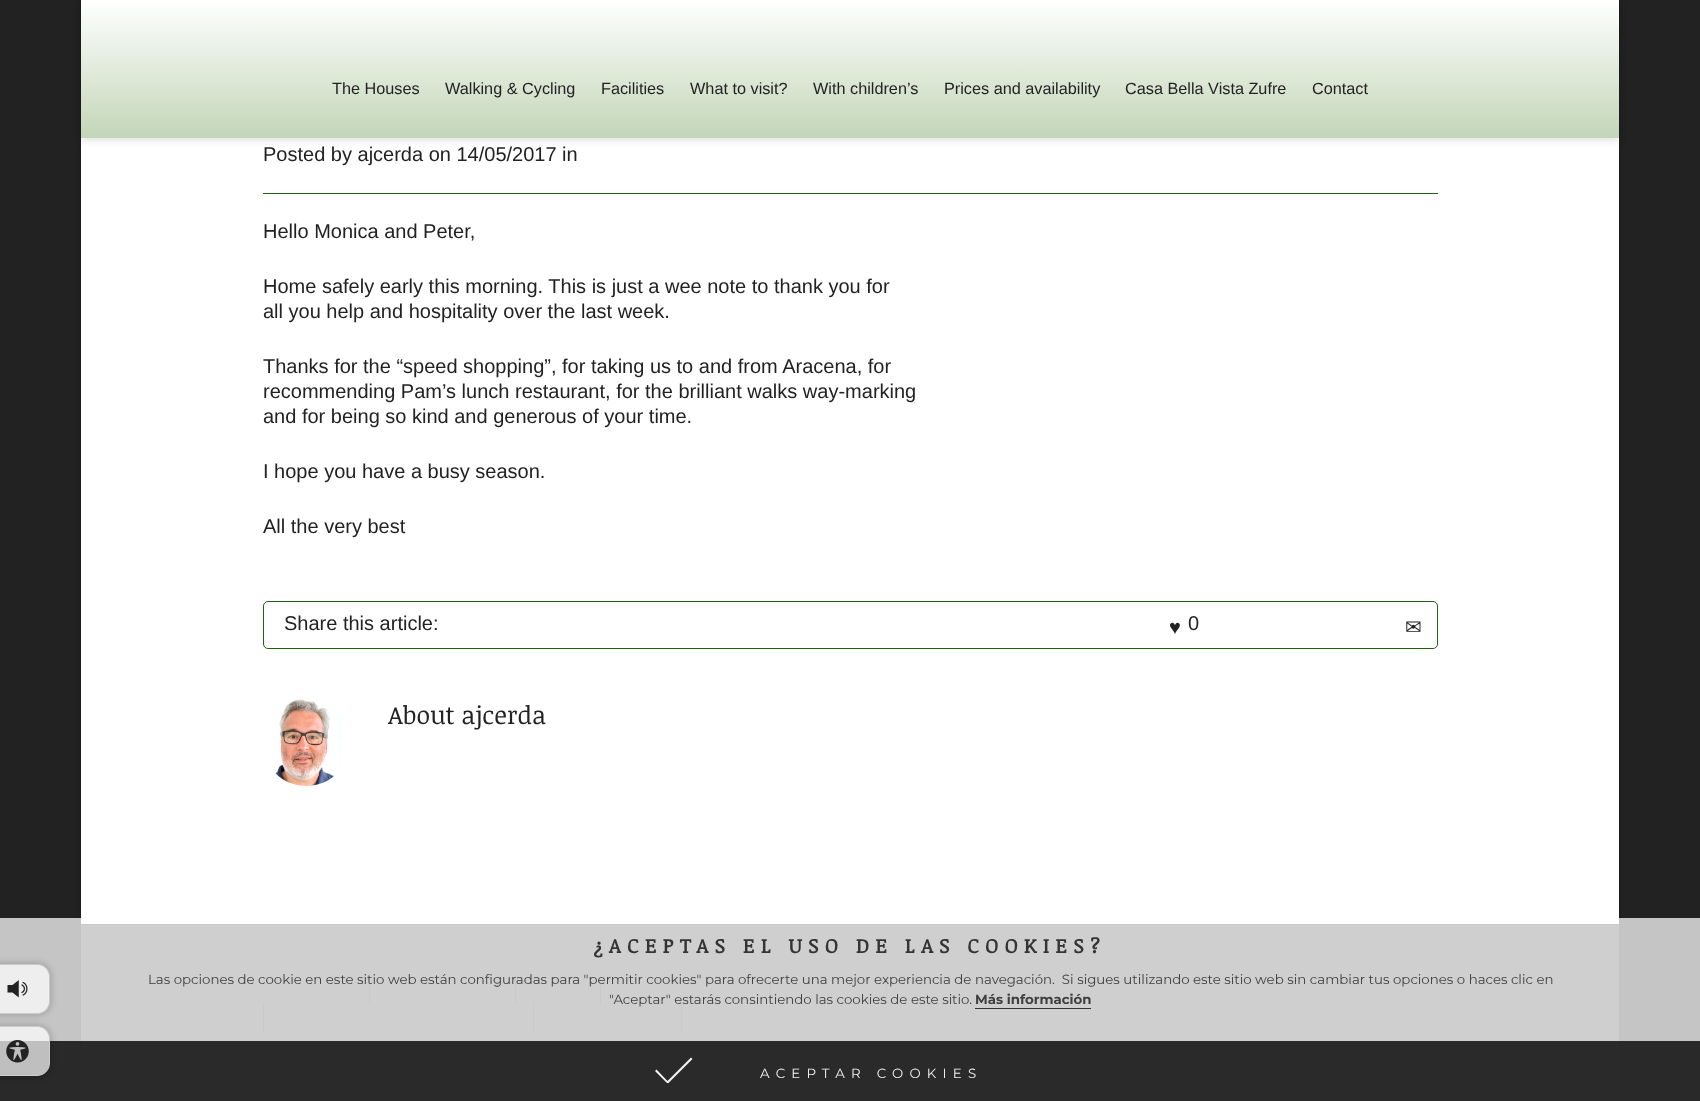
<svg xmlns="http://www.w3.org/2000/svg" width="1700" height="1101" viewBox="0 0 1700 1101">
  <style>
    .t1 { font: 16.25px Liberation Sans; fill: #222; }
    .t2 { font: 20px Liberation Sans; fill: #222; }
    .t3 { font: 20px Liberation Serif; fill: #222; }
    .t4 { font: 20px DejaVu Sans; fill: #222; }
    .t5 { font: 25px Noticia Text; fill: #222; }
    .t6 { font: bold 20px Noticia Text; letter-spacing: 6.25px; fill: #343434; }
    .t7 { font: 13.33px Montserrat; fill: #3e3e3e; }
    .t8 { font: bold 13.33px Montserrat; fill: #3e3e3e; }
    .t9 { font: 13.33px Montserrat; letter-spacing: 6.25px; fill: #f2f2f2; }
  </style>
  <defs>
    <linearGradient id="g1" gradientUnits="userSpaceOnUse" x1="850" y1="0" x2="850" y2="138"><stop offset="0" stop-color="#fff"/><stop offset="1" stop-color="#c3d6b8"/></linearGradient>
    <clipPath id="clip1"><path d="M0 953H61V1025H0ZM-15 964H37C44 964 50 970 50 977V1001C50 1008 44 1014 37 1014H-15Z" clip-rule="evenodd"/></clipPath>
    <clipPath id="clip2"><path d="M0 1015H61V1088H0ZM-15 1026H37C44 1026 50 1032 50 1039V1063C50 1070 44 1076 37 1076H-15Z" clip-rule="evenodd"/></clipPath>
  </defs>
  <rect width="100%" height="100%" fill="#222"/>
  <rect x="81" y="-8" width="1538" height="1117" fill="#0000004d" filter="blur(2.5px)"/>
  <rect x="81" y="138" width="1538" height="786" fill="#fff"/>
  <rect x="81" y="4" width="1538" height="137" fill="#0000001a" filter="blur(3px)"/>
  <rect x="81" y="0" width="1538" height="138" fill="url(#g1)"/>
  <text x="332" y="94" class="t1">The Houses</text>
  <text x="445" y="94" class="t1">Walking &amp; Cycling</text>
  <text x="601" y="94" class="t1">Facilities</text>
  <text x="690" y="94" class="t1">What to visit?</text>
  <text x="813" y="94" class="t1">With children’s</text>
  <text x="944" y="94" class="t1">Prices and availability</text>
  <text x="1125" y="94" class="t1">Casa Bella Vista Zufre</text>
  <text x="1312" y="94" class="t1">Contact</text>
  <rect x="263" y="193" width="1175" height="1" fill="#216010"/>
  <text x="263" y="161" class="t2">Posted by ajcerda on 14/05/2017 in</text>
  <text x="263" y="238" class="t2">Hello Monica and Peter,</text>
  <text x="263" y="293" class="t2">Home safely early this morning. This is just a wee note to thank you for</text>
  <text x="263" y="318" class="t2">all you help and hospitality over the last week.</text>
  <text x="263" y="373" class="t2">Thanks for the “speed shopping”, for taking us to and from Aracena, for</text>
  <text x="263" y="398" class="t2">recommending Pam’s lunch restaurant, for the brilliant walks way-marking</text>
  <text x="263" y="423" class="t2">and for being so kind and generous of your time.</text>
  <text x="263" y="478" class="t2">I hope you have a busy season.</text>
  <text x="263" y="533" class="t2">All the very best</text>
  <rect x="263.5" y="601.5" width="1174" height="47" rx="4.5" fill="none" stroke="#216010"/>
  <text x="284" y="630" class="t2">Share this article:</text>
  <text x="1169" y="634" class="t3">♥</text>
  <text x="1188" y="630" class="t2">0</text>
  <text x="1405" y="634" class="t4">✉</text>
  <image x="275" y="699" width="68" height="87" href="images/1.png"/>
  <text x="388" y="724" class="t5">About ajcerda</text>
  <rect x="81" y="925" width="1538" height="176" fill="#474747"/>
  <rect x="81" y="924" width="1538" height="1" fill="#333"/>
  <rect x="369" y="974" width="1" height="30" fill="#333"/>
  <rect x="515" y="974" width="1" height="30" fill="#333"/>
  <rect x="600" y="974" width="1" height="30" fill="#333"/>
  <rect x="770" y="974" width="1" height="30" fill="#333"/>
  <rect x="886" y="974" width="1" height="30" fill="#333"/>
  <rect x="263" y="1004" width="1" height="30" fill="#333"/>
  <rect x="533" y="1004" width="1" height="30" fill="#333"/>
  <rect x="681" y="1004" width="1" height="30" fill="#333"/>
  <rect x="0" y="918" width="1700" height="183" fill="#ffffffbd"/>
  <g clip-path="url(#clip1)">
    <rect x="-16" y="963" width="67" height="52" rx="14" fill="#00000033" filter="blur(3px)"/>
  </g>
  <path d="M-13.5 964.5H37C44 964.5 49.5 970 49.5 977V1001C49.5 1008 44 1013.5 37 1013.5H-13.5Z" fill="#ffffffb3" stroke="#ccc"/>
  <image x="7" y="980" width="21" height="18" href="images/2.png"/>
  <text x="593" y="953" class="t6">¿ACEPTAS EL USO DE LAS COOKIES?</text>
  <text x="148" y="984" class="t7" xml:space="preserve">Las opciones de cookie en este sitio web están configuradas para "permitir cookies" para ofrecerte una mejor experiencia de navegación.  Si sigues utilizando este sitio web sin cambiar tus opciones o haces clic en</text>
  <text x="609" y="1004" class="t7">"Aceptar" estarás consintiendo las cookies de este sitio.</text>
  <text x="975" y="1004" class="t8">Más información</text>
  <rect x="975" y="1008" width="116" height="1" fill="#343434"/>
  <rect x="0" y="1041" width="1700" height="60" fill="#1d1d1ded"/>
  <path d="M668.5 1083H667L655 1071L656.5 1069.5L667.5 1081L691 1057.5L692.5 1059Z" fill="#f2f2f2"/>
  <text x="760" y="1078" class="t9">ACEPTAR COOKIES</text>
  <g clip-path="url(#clip2)">
    <rect x="-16" y="1025" width="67" height="53" rx="14" fill="#00000033" filter="blur(3px)"/>
  </g>
  <path d="M-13.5 1026.5H37C44 1026.5 49.5 1032 49.5 1039V1063C49.5 1070 44 1075.5 37 1075.5H-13.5Z" fill="#ffffffb3" stroke="#ccc"/>
  <image x="6" y="1040" width="23" height="23" href="images/3.png"/>
</svg>
